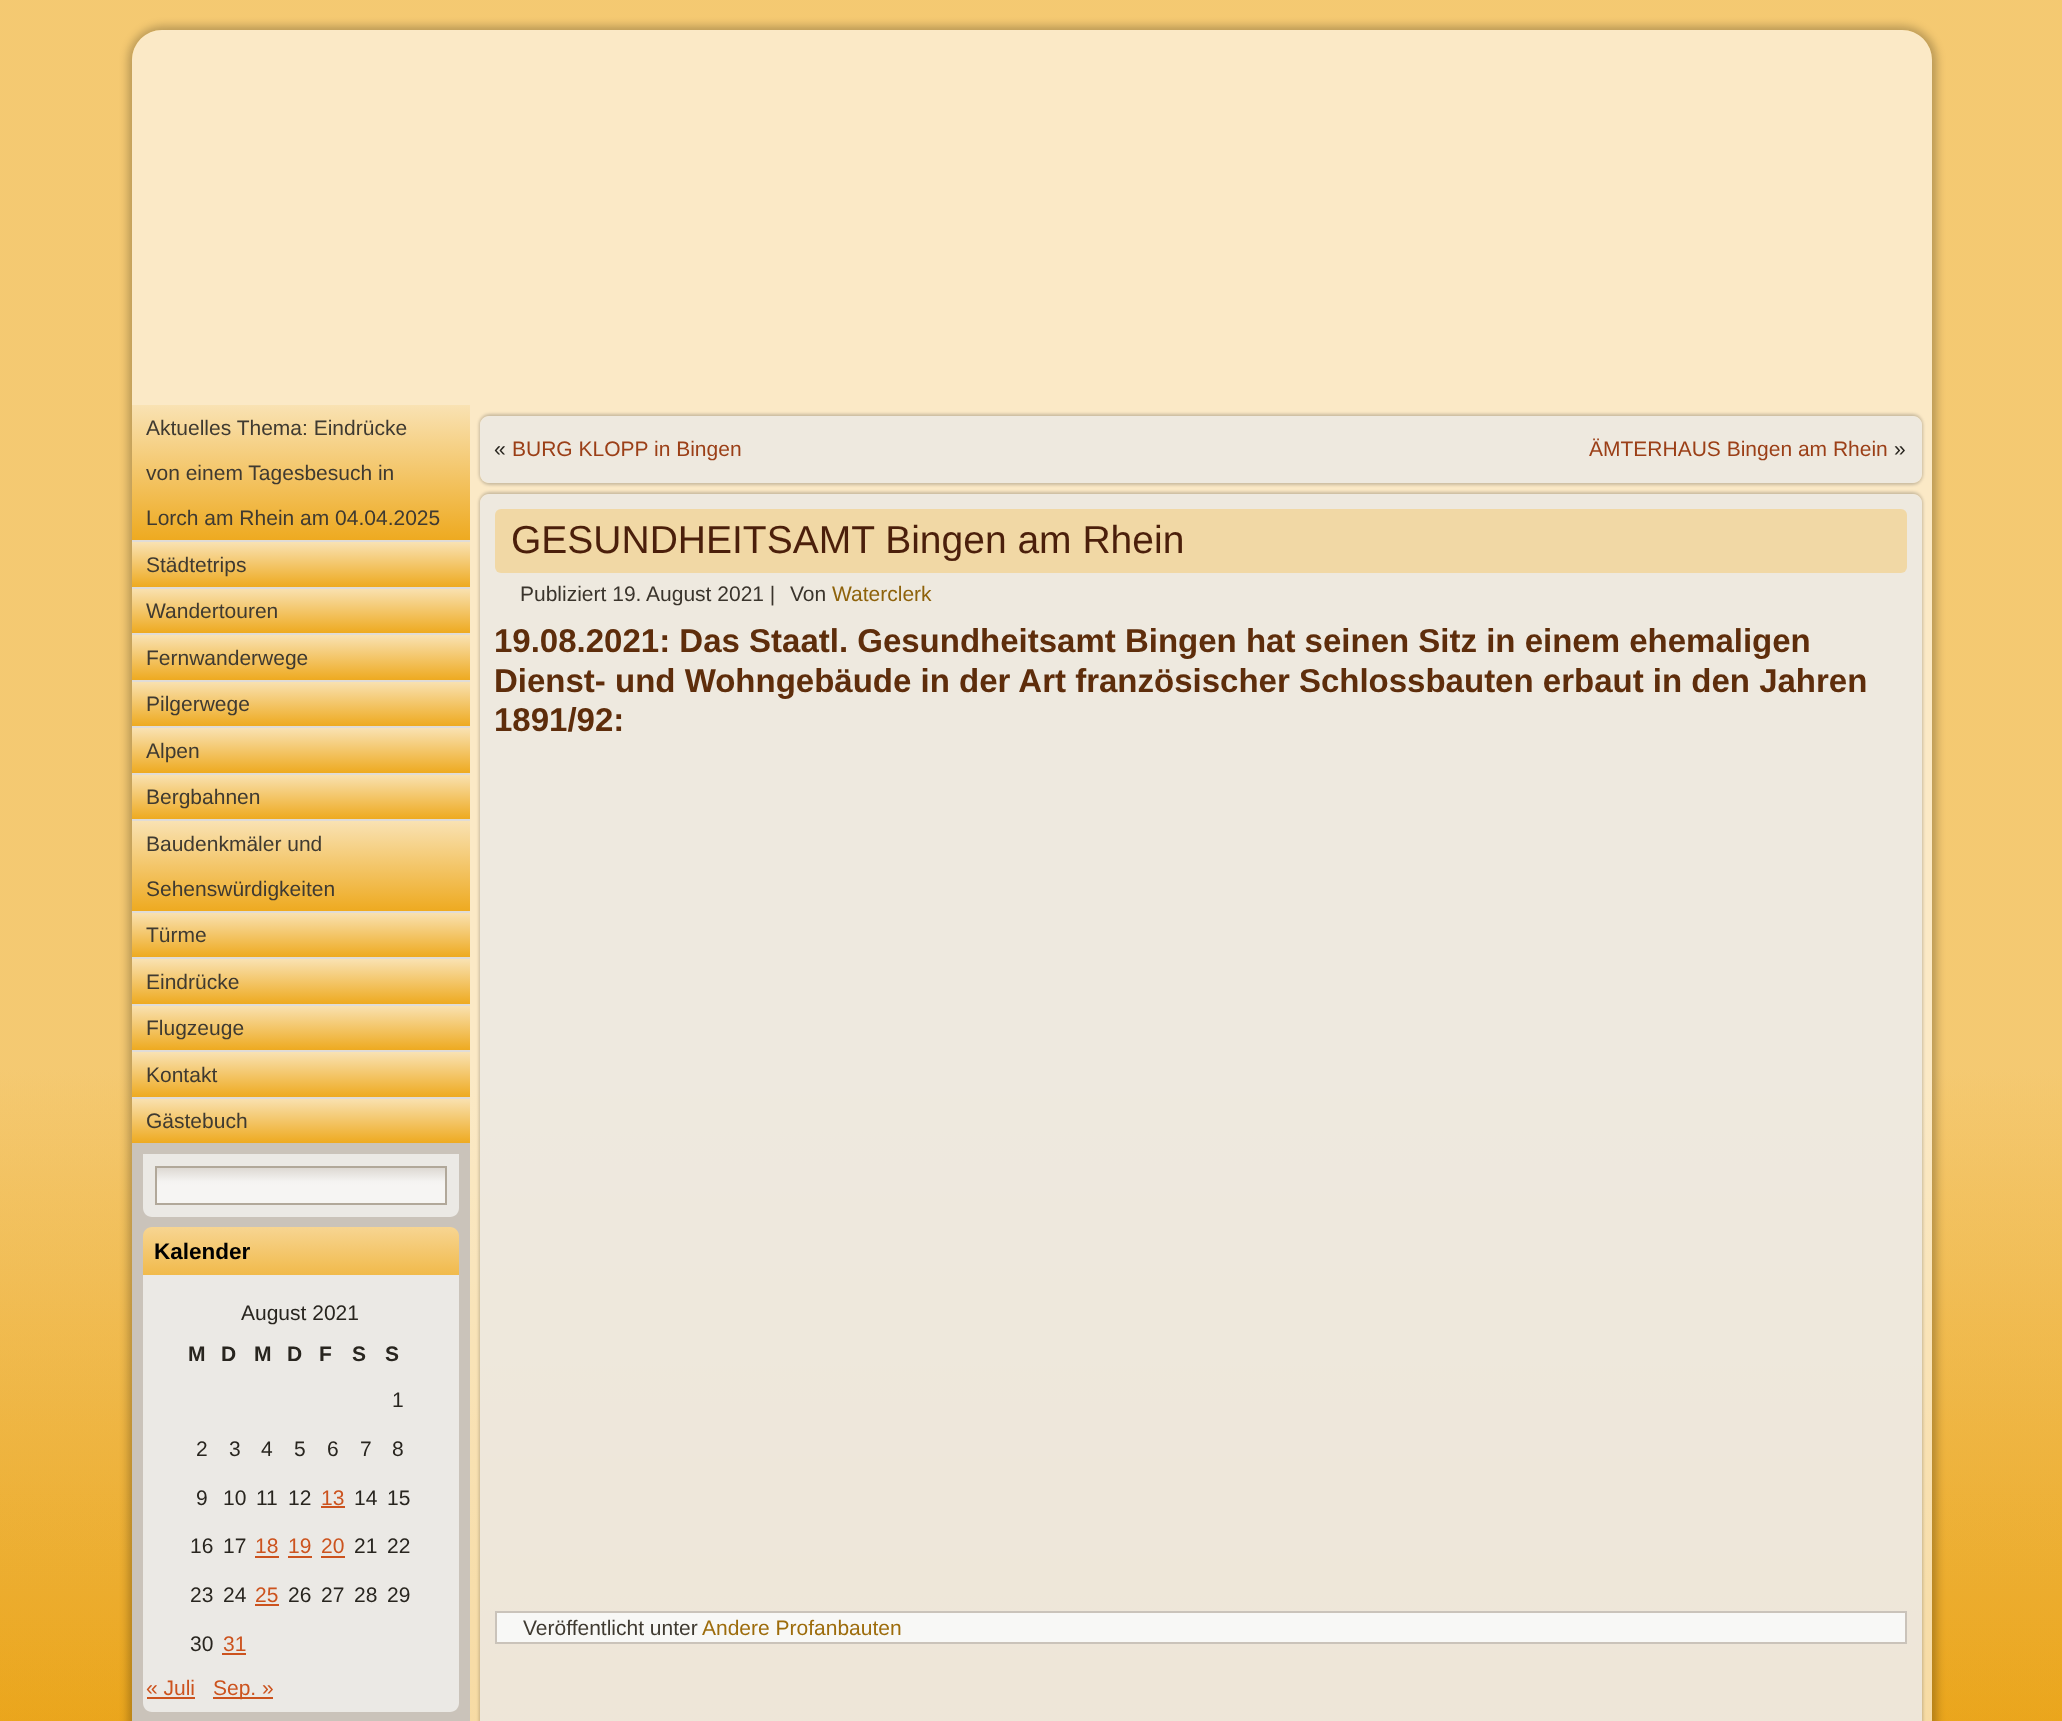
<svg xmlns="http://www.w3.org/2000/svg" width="2062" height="1721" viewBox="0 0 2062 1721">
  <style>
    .t1 { font: 21px Liberation Sans; fill: #3f3a31; }
    .t2 { font: bold 22.5px Liberation Sans; fill: #000; }
    .t3 { font: 21px Liberation Sans; fill: #28251f; }
    .t4 { font: bold 21px Liberation Sans; fill: #28251f; }
    .t5 { font: 21px Liberation Sans; fill: #cc531e; }
    .t6 { font: 21px Liberation Sans; fill: #9b3f17; }
    .t7 { font: 39px Liberation Sans; fill: #4b1f0b; }
    .t8 { font: 21px Liberation Sans; fill: #3a342c; }
    .t9 { font: 21px Liberation Sans; fill: #8e620b; }
    .t10 { font: bold 33px Liberation Sans; fill: #5e2d0b; }
    .t11 { font: 21px Liberation Sans; fill: #9d6c0c; }
  </style>
  <defs>
    <linearGradient id="g1" gradientUnits="userSpaceOnUse" x1="1031" y1="0" x2="1031" y2="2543"><stop offset="0" stop-color="#f4c76c"/><stop offset="0.42" stop-color="#f4c76c"/><stop offset="0.71" stop-color="#eda412"/></linearGradient>
    <linearGradient id="g2" gradientUnits="userSpaceOnUse" x1="1031" y1="0" x2="1031" y2="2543"><stop offset="0" stop-color="#f6cf82" stop-opacity="0.25"/><stop offset="0.42" stop-color="#f6cf82" stop-opacity="0.25"/><stop offset="0.71" stop-color="#d79410" stop-opacity="0.18"/></linearGradient>
    <clipPath id="clip1"><path d="M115 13H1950V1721H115ZM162 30H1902C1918.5 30 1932 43.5 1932 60V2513C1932 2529.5 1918.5 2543 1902 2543H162C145.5 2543 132 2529.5 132 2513V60C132 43.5 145.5 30 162 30Z" clip-rule="evenodd"/></clipPath>
    <linearGradient id="g3" gradientUnits="userSpaceOnUse" x1="301" y1="405" x2="301" y2="540"><stop offset="0" stop-color="#f9e2b3"/><stop offset="1" stop-color="#eeaa20"/></linearGradient>
    <linearGradient id="g4" gradientUnits="userSpaceOnUse" x1="301" y1="542" x2="301" y2="587"><stop offset="0" stop-color="#f9e2b3"/><stop offset="1" stop-color="#eeaa20"/></linearGradient>
    <linearGradient id="g5" gradientUnits="userSpaceOnUse" x1="301" y1="588" x2="301" y2="633"><stop offset="0" stop-color="#f9e2b3"/><stop offset="1" stop-color="#eeaa20"/></linearGradient>
    <linearGradient id="g6" gradientUnits="userSpaceOnUse" x1="301" y1="635" x2="301" y2="680"><stop offset="0" stop-color="#f9e2b3"/><stop offset="1" stop-color="#eeaa20"/></linearGradient>
    <linearGradient id="g7" gradientUnits="userSpaceOnUse" x1="301" y1="681" x2="301" y2="726"><stop offset="0" stop-color="#f9e2b3"/><stop offset="1" stop-color="#eeaa20"/></linearGradient>
    <linearGradient id="g8" gradientUnits="userSpaceOnUse" x1="301" y1="728" x2="301" y2="773"><stop offset="0" stop-color="#f9e2b3"/><stop offset="1" stop-color="#eeaa20"/></linearGradient>
    <linearGradient id="g9" gradientUnits="userSpaceOnUse" x1="301" y1="774" x2="301" y2="819"><stop offset="0" stop-color="#f9e2b3"/><stop offset="1" stop-color="#eeaa20"/></linearGradient>
    <linearGradient id="g10" gradientUnits="userSpaceOnUse" x1="301" y1="821" x2="301" y2="911"><stop offset="0" stop-color="#f9e2b3"/><stop offset="1" stop-color="#eeaa20"/></linearGradient>
    <linearGradient id="g11" gradientUnits="userSpaceOnUse" x1="301" y1="912" x2="301" y2="957"><stop offset="0" stop-color="#f9e2b3"/><stop offset="1" stop-color="#eeaa20"/></linearGradient>
    <linearGradient id="g12" gradientUnits="userSpaceOnUse" x1="301" y1="959" x2="301" y2="1004"><stop offset="0" stop-color="#f9e2b3"/><stop offset="1" stop-color="#eeaa20"/></linearGradient>
    <linearGradient id="g13" gradientUnits="userSpaceOnUse" x1="301" y1="1005" x2="301" y2="1050"><stop offset="0" stop-color="#f9e2b3"/><stop offset="1" stop-color="#eeaa20"/></linearGradient>
    <linearGradient id="g14" gradientUnits="userSpaceOnUse" x1="301" y1="1052" x2="301" y2="1097"><stop offset="0" stop-color="#f9e2b3"/><stop offset="1" stop-color="#eeaa20"/></linearGradient>
    <linearGradient id="g15" gradientUnits="userSpaceOnUse" x1="301" y1="1098" x2="301" y2="1143"><stop offset="0" stop-color="#f9e2b3"/><stop offset="1" stop-color="#eeaa20"/></linearGradient>
    <linearGradient id="g16" gradientUnits="userSpaceOnUse" x1="301" y1="1167" x2="301" y2="1203"><stop offset="0" stop-color="#dcd7d1"/><stop offset="0.4" stop-color="#f4f3f1"/><stop offset="0.5" stop-color="#f6f5f3"/><stop offset="1" stop-color="#f6f5f3"/></linearGradient>
    <linearGradient id="g17" gradientUnits="userSpaceOnUse" x1="301" y1="1227" x2="301" y2="1275"><stop offset="0" stop-color="#f7d592"/><stop offset="1" stop-color="#f1ba4b"/></linearGradient>
    <clipPath id="clip2"><path d="M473 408H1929V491H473ZM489 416H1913C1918 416 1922 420 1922 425V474C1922 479 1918 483 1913 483H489C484 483 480 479 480 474V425C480 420 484 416 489 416Z" clip-rule="evenodd"/></clipPath>
    <clipPath id="clip3"><path d="M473 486H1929V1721H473ZM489 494H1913C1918 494 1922 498 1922 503V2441C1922 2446 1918 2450 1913 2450H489C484 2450 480 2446 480 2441V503C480 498 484 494 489 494Z" clip-rule="evenodd"/></clipPath>
  </defs>
  <rect width="100%" height="100%" fill="#fff"/>
  <rect x="0" y="0" width="2062" height="1721" fill="url(#g1)"/>
  <rect x="0" y="0" width="2062" height="1721" fill="url(#g2)"/>
  <g clip-path="url(#clip1)">
    <rect x="128" y="26" width="1809" height="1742" rx="35" fill="#0000003d" filter="blur(4px)"/>
  </g>
  <rect x="132" y="30" width="1800" height="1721" rx="30" fill="#ffffff99"/>
  <rect x="132" y="1143" width="338" height="578" fill="#cac3ba"/>
  <rect x="132" y="405" width="338" height="135" fill="url(#g3)"/>
  <text x="146" y="435" class="t1">Aktuelles Thema: Eindrücke</text>
  <text x="146" y="480" class="t1">von einem Tagesbesuch in</text>
  <text x="146" y="525" class="t1">Lorch am Rhein am 04.04.2025</text>
  <rect x="132" y="540" width="338" height="2" fill="#e0dcd7"/>
  <rect x="132" y="542" width="338" height="45" fill="url(#g4)"/>
  <text x="146" y="572" class="t1">Städtetrips</text>
  <rect x="132" y="587" width="338" height="2" fill="#e0dcd7"/>
  <rect x="132" y="589" width="338" height="44" fill="url(#g5)"/>
  <text x="146" y="618" class="t1">Wandertouren</text>
  <rect x="132" y="633" width="338" height="2" fill="#e0dcd7"/>
  <rect x="132" y="635" width="338" height="45" fill="url(#g6)"/>
  <text x="146" y="665" class="t1">Fernwanderwege</text>
  <rect x="132" y="680" width="338" height="2" fill="#e0dcd7"/>
  <rect x="132" y="682" width="338" height="44" fill="url(#g7)"/>
  <text x="146" y="711" class="t1">Pilgerwege</text>
  <rect x="132" y="726" width="338" height="2" fill="#e0dcd7"/>
  <rect x="132" y="728" width="338" height="45" fill="url(#g8)"/>
  <text x="146" y="758" class="t1">Alpen</text>
  <rect x="132" y="773" width="338" height="2" fill="#e0dcd7"/>
  <rect x="132" y="775" width="338" height="44" fill="url(#g9)"/>
  <text x="146" y="804" class="t1">Bergbahnen</text>
  <rect x="132" y="819" width="338" height="2" fill="#e0dcd7"/>
  <rect x="132" y="821" width="338" height="90" fill="url(#g10)"/>
  <text x="146" y="851" class="t1">Baudenkmäler und</text>
  <text x="146" y="896" class="t1">Sehenswürdigkeiten</text>
  <rect x="132" y="911" width="338" height="2" fill="#e0dcd7"/>
  <rect x="132" y="913" width="338" height="44" fill="url(#g11)"/>
  <text x="146" y="942" class="t1">Türme</text>
  <rect x="132" y="957" width="338" height="2" fill="#e0dcd7"/>
  <rect x="132" y="959" width="338" height="45" fill="url(#g12)"/>
  <text x="146" y="989" class="t1">Eindrücke</text>
  <rect x="132" y="1004" width="338" height="2" fill="#e0dcd7"/>
  <rect x="132" y="1006" width="338" height="44" fill="url(#g13)"/>
  <text x="146" y="1035" class="t1">Flugzeuge</text>
  <rect x="132" y="1050" width="338" height="2" fill="#e0dcd7"/>
  <rect x="132" y="1052" width="338" height="45" fill="url(#g14)"/>
  <text x="146" y="1082" class="t1">Kontakt</text>
  <rect x="132" y="1097" width="338" height="2" fill="#e0dcd7"/>
  <rect x="132" y="1099" width="338" height="44" fill="url(#g15)"/>
  <text x="146" y="1128" class="t1">Gästebuch</text>
  <path d="M143 1154H459V1208C459 1213 455 1217 450 1217H152C147 1217 143 1213 143 1208Z" fill="#ebe9e5"/>
  <rect x="157" y="1168" width="288" height="35" fill="url(#g16)"/>
  <rect x="156" y="1167" width="290" height="37" fill="none" stroke="#b1a89a" stroke-width="2"/>
  <path d="M152 1227H450C455 1227 459 1231 459 1236V1275H143V1236C143 1231 147 1227 152 1227Z" fill="url(#g17)"/>
  <text x="154" y="1259" class="t2">Kalender</text>
  <path d="M143 1275H459V1703C459 1708 455 1712 450 1712H152C147 1712 143 1708 143 1703Z" fill="#ebe9e5"/>
  <text x="241" y="1320" class="t3">August 2021</text>
  <text x="188" y="1361" class="t4">M</text>
  <text x="221" y="1361" class="t4">D</text>
  <text x="254" y="1361" class="t4">M</text>
  <text x="287" y="1361" class="t4">D</text>
  <text x="319" y="1361" class="t4">F</text>
  <text x="352" y="1361" class="t4">S</text>
  <text x="385" y="1361" class="t4">S</text>
  <text x="392" y="1407" class="t3">1</text>
  <text x="196" y="1456" class="t3">2</text>
  <text x="229" y="1456" class="t3">3</text>
  <text x="261" y="1456" class="t3">4</text>
  <text x="294" y="1456" class="t3">5</text>
  <text x="327" y="1456" class="t3">6</text>
  <text x="360" y="1456" class="t3">7</text>
  <text x="392" y="1456" class="t3">8</text>
  <text x="196" y="1505" class="t3">9</text>
  <text x="223" y="1505" class="t3">10</text>
  <text x="256" y="1505" class="t3">11</text>
  <text x="288" y="1505" class="t3">12</text>
  <text x="321" y="1505" class="t5">13</text>
  <rect x="321" y="1506" width="24" height="2" fill="#cc531e"/>
  <text x="354" y="1505" class="t3">14</text>
  <text x="387" y="1505" class="t3">15</text>
  <text x="190" y="1553" class="t3">16</text>
  <text x="223" y="1553" class="t3">17</text>
  <text x="255" y="1553" class="t5">18</text>
  <rect x="255" y="1556" width="24" height="2" fill="#cc531e"/>
  <text x="288" y="1553" class="t5">19</text>
  <rect x="288" y="1556" width="24" height="2" fill="#cc531e"/>
  <text x="321" y="1553" class="t5">20</text>
  <rect x="321" y="1556" width="24" height="2" fill="#cc531e"/>
  <text x="354" y="1553" class="t3">21</text>
  <text x="387" y="1553" class="t3">22</text>
  <text x="190" y="1602" class="t3">23</text>
  <text x="223" y="1602" class="t3">24</text>
  <text x="255" y="1602" class="t5">25</text>
  <rect x="255" y="1604" width="24" height="2" fill="#cc531e"/>
  <text x="288" y="1602" class="t3">26</text>
  <text x="321" y="1602" class="t3">27</text>
  <text x="354" y="1602" class="t3">28</text>
  <text x="387" y="1602" class="t3">29</text>
  <text x="190" y="1651" class="t3">30</text>
  <text x="223" y="1651" class="t5">31</text>
  <rect x="222" y="1653" width="24" height="2" fill="#cc531e"/>
  <text x="146" y="1695" class="t5">« Juli</text>
  <rect x="147" y="1697" width="48" height="2" fill="#cc531e"/>
  <rect x="213" y="1697" width="60" height="2" fill="#cc531e"/>
  <text x="213" y="1695" class="t5">Sep. »</text>
  <g clip-path="url(#clip2)">
    <rect x="479" y="414" width="1444" height="71" rx="11" fill="#00000033" filter="blur(1.5px)"/>
  </g>
  <rect x="480" y="416" width="1442" height="67" rx="9" fill="#ebe9e5cc"/>
  <text x="494" y="456" class="t3">«</text>
  <text x="512" y="456" class="t6">BURG KLOPP in Bingen</text>
  <text x="1589" y="456" class="t6">ÄMTERHAUS Bingen am Rhein</text>
  <text x="1894" y="456" class="t3">»</text>
  <g clip-path="url(#clip3)">
    <rect x="479" y="492" width="1444" height="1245" rx="11" fill="#00000033" filter="blur(1.5px)"/>
  </g>
  <rect x="480" y="494" width="1442" height="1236" rx="9" fill="#ebe9e5cc"/>
  <rect x="495" y="509" width="1412" height="64" rx="6" fill="#f1d8a5"/>
  <text x="511" y="553" class="t7">GESUNDHEITSAMT Bingen am Rhein</text>
  <text x="520" y="601" class="t8">Publiziert 19. August 2021 |</text>
  <text x="790" y="601" class="t8">Von</text>
  <text x="832" y="601" class="t9">Waterclerk</text>
  <text x="494" y="652" class="t10">19.08.2021: Das Staatl. Gesundheitsamt Bingen hat seinen Sitz in einem ehemaligen</text>
  <text x="494" y="692" class="t10">Dienst- und Wohngebäude in der Art französischer Schlossbauten erbaut in den Jahren</text>
  <text x="494" y="731" class="t10">1891/92:</text>
  <rect x="496" y="1612" width="1410" height="31" fill="#f8f8f6" stroke="#cac3ba" stroke-width="2"/>
  <text x="523" y="1635" class="t1">Veröffentlicht unter</text>
  <text x="702" y="1635" class="t11">Andere Profanbauten</text>
</svg>
